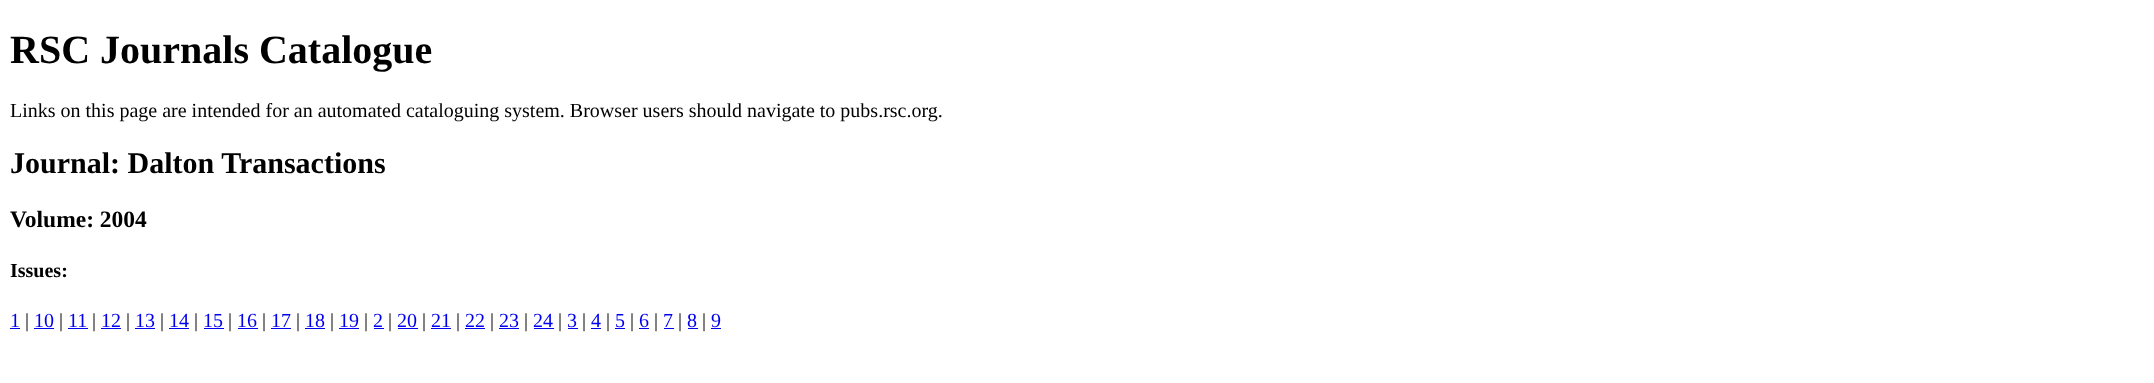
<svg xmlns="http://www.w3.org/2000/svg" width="2154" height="383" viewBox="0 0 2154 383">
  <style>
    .t1 { font: bold 40px Liberation Serif; fill: #000; }
    .t2 { font: 20px Liberation Serif; fill: #000; }
    .t3 { font: bold 30px Liberation Serif; fill: #000; }
    .t4 { font: bold 23.5px Liberation Serif; fill: #000; }
    .t5 { font: bold 20px Liberation Serif; fill: #000; }
    .t6 { font: 20px Liberation Serif; fill: #00e; }
  </style>
  <rect width="100%" height="100%" fill="#fff"/>
  <text x="10" y="63" class="t1">RSC Journals Catalogue</text>
  <text x="10" y="117" class="t2">Links on this page are intended for an automated cataloguing system. Browser users should navigate to pubs.rsc.org.</text>
  <text x="10" y="173" class="t3">Journal: Dalton Transactions</text>
  <text x="10" y="227" class="t4">Volume: 2004</text>
  <text x="10" y="277" class="t5">Issues:</text>
  <text x="10" y="327" class="t6">1</text>
  <rect x="10" y="328" width="10" height="1" fill="#00e"/>
  <text x="25" y="327" class="t2">|</text>
  <text x="34" y="327" class="t6">10</text>
  <rect x="34" y="328" width="20" height="1" fill="#00e"/>
  <text x="59" y="327" class="t2">|</text>
  <text x="68" y="327" class="t6">11</text>
  <rect x="68" y="328" width="20" height="1" fill="#00e"/>
  <text x="92" y="327" class="t2">|</text>
  <text x="101" y="327" class="t6">12</text>
  <rect x="101" y="328" width="20" height="1" fill="#00e"/>
  <text x="126" y="327" class="t2">|</text>
  <text x="135" y="327" class="t6">13</text>
  <rect x="135" y="328" width="20" height="1" fill="#00e"/>
  <text x="160" y="327" class="t2">|</text>
  <text x="169" y="327" class="t6">14</text>
  <rect x="169" y="328" width="20" height="1" fill="#00e"/>
  <text x="194" y="327" class="t2">|</text>
  <text x="203" y="327" class="t6">15</text>
  <rect x="204" y="328" width="20" height="1" fill="#00e"/>
  <text x="228" y="327" class="t2">|</text>
  <text x="237" y="327" class="t6">16</text>
  <rect x="238" y="328" width="20" height="1" fill="#00e"/>
  <text x="262" y="327" class="t2">|</text>
  <text x="271" y="327" class="t6">17</text>
  <rect x="271" y="328" width="20" height="1" fill="#00e"/>
  <text x="296" y="327" class="t2">|</text>
  <text x="305" y="327" class="t6">18</text>
  <rect x="305" y="328" width="20" height="1" fill="#00e"/>
  <text x="330" y="327" class="t2">|</text>
  <text x="339" y="327" class="t6">19</text>
  <rect x="339" y="328" width="20" height="1" fill="#00e"/>
  <text x="364" y="327" class="t2">|</text>
  <text x="373" y="327" class="t6">2</text>
  <rect x="374" y="328" width="10" height="1" fill="#00e"/>
  <text x="388" y="327" class="t2">|</text>
  <text x="397" y="327" class="t6">20</text>
  <rect x="398" y="328" width="20" height="1" fill="#00e"/>
  <text x="422" y="327" class="t2">|</text>
  <text x="431" y="327" class="t6">21</text>
  <rect x="431" y="328" width="20" height="1" fill="#00e"/>
  <text x="456" y="327" class="t2">|</text>
  <text x="465" y="327" class="t6">22</text>
  <rect x="465" y="328" width="20" height="1" fill="#00e"/>
  <text x="490" y="327" class="t2">|</text>
  <text x="499" y="327" class="t6">23</text>
  <rect x="499" y="328" width="20" height="1" fill="#00e"/>
  <text x="524" y="327" class="t2">|</text>
  <text x="533" y="327" class="t6">24</text>
  <rect x="534" y="328" width="20" height="1" fill="#00e"/>
  <text x="558" y="327" class="t2">|</text>
  <text x="567" y="327" class="t6">3</text>
  <rect x="568" y="328" width="10" height="1" fill="#00e"/>
  <text x="582" y="327" class="t2">|</text>
  <text x="591" y="327" class="t6">4</text>
  <rect x="591" y="328" width="10" height="1" fill="#00e"/>
  <text x="606" y="327" class="t2">|</text>
  <text x="615" y="327" class="t6">5</text>
  <rect x="615" y="328" width="10" height="1" fill="#00e"/>
  <text x="630" y="327" class="t2">|</text>
  <text x="639" y="327" class="t6">6</text>
  <rect x="639" y="328" width="10" height="1" fill="#00e"/>
  <text x="654" y="327" class="t2">|</text>
  <text x="663" y="327" class="t6">7</text>
  <rect x="664" y="328" width="10" height="1" fill="#00e"/>
  <text x="678" y="327" class="t2">|</text>
  <text x="687" y="327" class="t6">8</text>
  <rect x="688" y="328" width="10" height="1" fill="#00e"/>
  <text x="702" y="327" class="t2">|</text>
  <text x="711" y="327" class="t6">9</text>
  <rect x="711" y="328" width="10" height="1" fill="#00e"/>
</svg>
